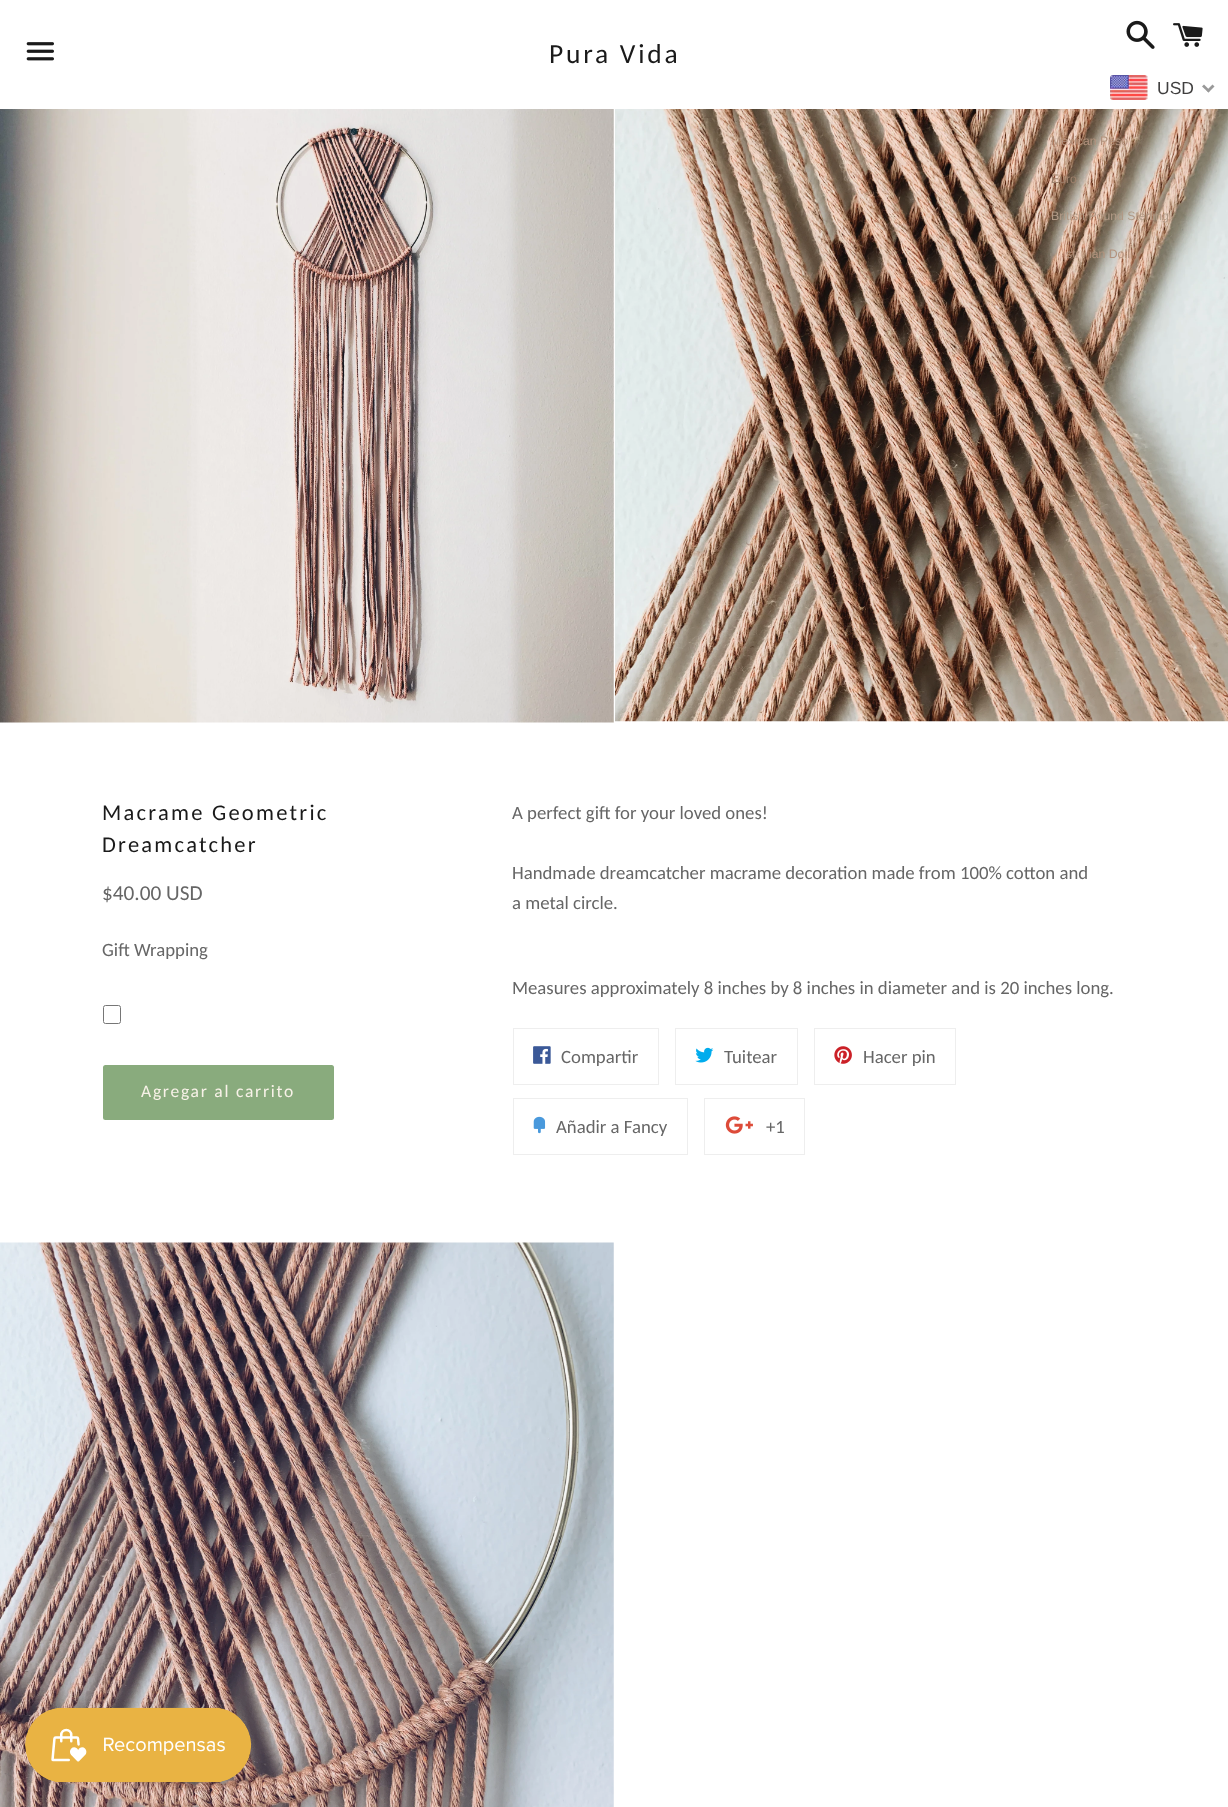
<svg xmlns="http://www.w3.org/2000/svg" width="1228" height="1807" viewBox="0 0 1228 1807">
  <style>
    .t1 { font: 27.5px Carlito; letter-spacing: 2.75px; fill: #1a1a1a; }
    .t2 { font: 17.5px Liberation Sans; fill: #403f3f; }
    .t3 { font: 12.25px Liberation Sans; fill: #b2927d; }
    .t4 { font: 12.25px Liberation Sans; fill: #9e816c; }
    .t5 { font: 12.25px Liberation Sans; fill: #b19a86; }
    .t6 { font: 22.5px Carlito; letter-spacing: 2.25px; fill: #1a1a1a; }
    .t7 { font: 21.25px Carlito; fill: #666; }
    .t8 { font: 18.75px Carlito; fill: #666; }
    .t9 { font: 17.5px Carlito; letter-spacing: 1.75px; fill: #f8f2e8; }
  </style>
  <rect width="100%" height="100%" fill="#fff"/>
  <image x="26" y="42" width="28" height="19" href="images/1.png"/>
  <text x="549" y="63" class="t1">Pura Vida</text>
  <image x="1126" y="20" width="29" height="29" href="images/2.png"/>
  <image x="1173" y="23" width="30" height="24" href="images/3.png"/>
  <image x="1110" y="75" width="38" height="25" href="images/4.png"/>
  <text x="1157" y="94" class="t2">USD</text>
  <path d="M1212.5 84.5L1214.5 86.5L1208.5 92.5L1206.5 90.5Z" fill="#999"/>
  <path d="M1204 84.5L1210 90.5L1208.5 92.5L1202 86.5Z" fill="#999"/>
  <image x="615" y="109" width="613" height="613" href="images/6.png"/>
  <text x="1051" y="145" class="t3">Mexican Peso</text>
  <text x="1051" y="183" class="t4">Euro</text>
  <text x="1051" y="220" class="t5">British Pound Sterling</text>
  <text x="1066" y="258" class="t3">str</text>
  <text x="1089" y="258" class="t3">ian Doll</text>
  <image x="0" y="109" width="614" height="614" href="images/5.png"/>
  <text x="102" y="820" class="t6">Macrame Geometric</text>
  <text x="102" y="852" class="t6">Dreamcatcher</text>
  <text x="102" y="900" class="t7">$40.00 USD</text>
  <text x="102" y="956" class="t8">Gift Wrapping</text>
  <rect x="103.5" y="1005.5" width="17" height="18" rx="2" fill="none" stroke="#767676"/>
  <rect x="103" y="1065" width="231" height="55" rx="2.5" fill="#89ab7d"/>
  <text x="141" y="1097" class="t9">Agregar al carrito</text>
  <text x="512" y="819" class="t8">A perfect gift for your loved ones!</text>
  <text x="512" y="879" class="t8">Handmade dreamcatcher macrame decoration made from 100% cotton and</text>
  <text x="512" y="909" class="t8">a metal circle.</text>
  <text x="512" y="994" class="t8">Measures approximately 8 inches by 8 inches in diameter and is 20 inches long.</text>
  <rect x="513.5" y="1028.5" width="145" height="56" fill="none" stroke="#eee"/>
  <image x="533" y="1046" width="18" height="18" href="images/7.png"/>
  <text x="561" y="1063" class="t8">Compartir</text>
  <rect x="675.5" y="1028.5" width="122" height="56" fill="none" stroke="#eee"/>
  <image x="695" y="1047" width="19" height="16" href="images/8.png"/>
  <text x="724" y="1063" class="t8">Tuitear</text>
  <rect x="814.5" y="1028.5" width="141" height="56" fill="none" stroke="#eee"/>
  <image x="834" y="1046" width="18" height="18" href="images/9.png"/>
  <text x="863" y="1063" class="t8">Hacer pin</text>
  <rect x="513.5" y="1098.5" width="174" height="56" fill="none" stroke="#eee"/>
  <image x="533" y="1116" width="13" height="18" href="images/10.png"/>
  <text x="556" y="1133" class="t8">Añadir a Fancy</text>
  <rect x="704.5" y="1098.5" width="100" height="56" fill="none" stroke="#eee"/>
  <image x="725" y="1116" width="28" height="18" href="images/11.png"/>
  <text x="766" y="1133" class="t8">+1</text>
  <image x="0" y="1242" width="614" height="565" href="images/12.png"/>
  <rect x="25" y="1708" width="226" height="75" rx="37.5" fill="#0000000d" filter="blur(15.5px)"/>
  <image x="25" y="1707" width="226" height="76" href="images/13.png"/>
</svg>
